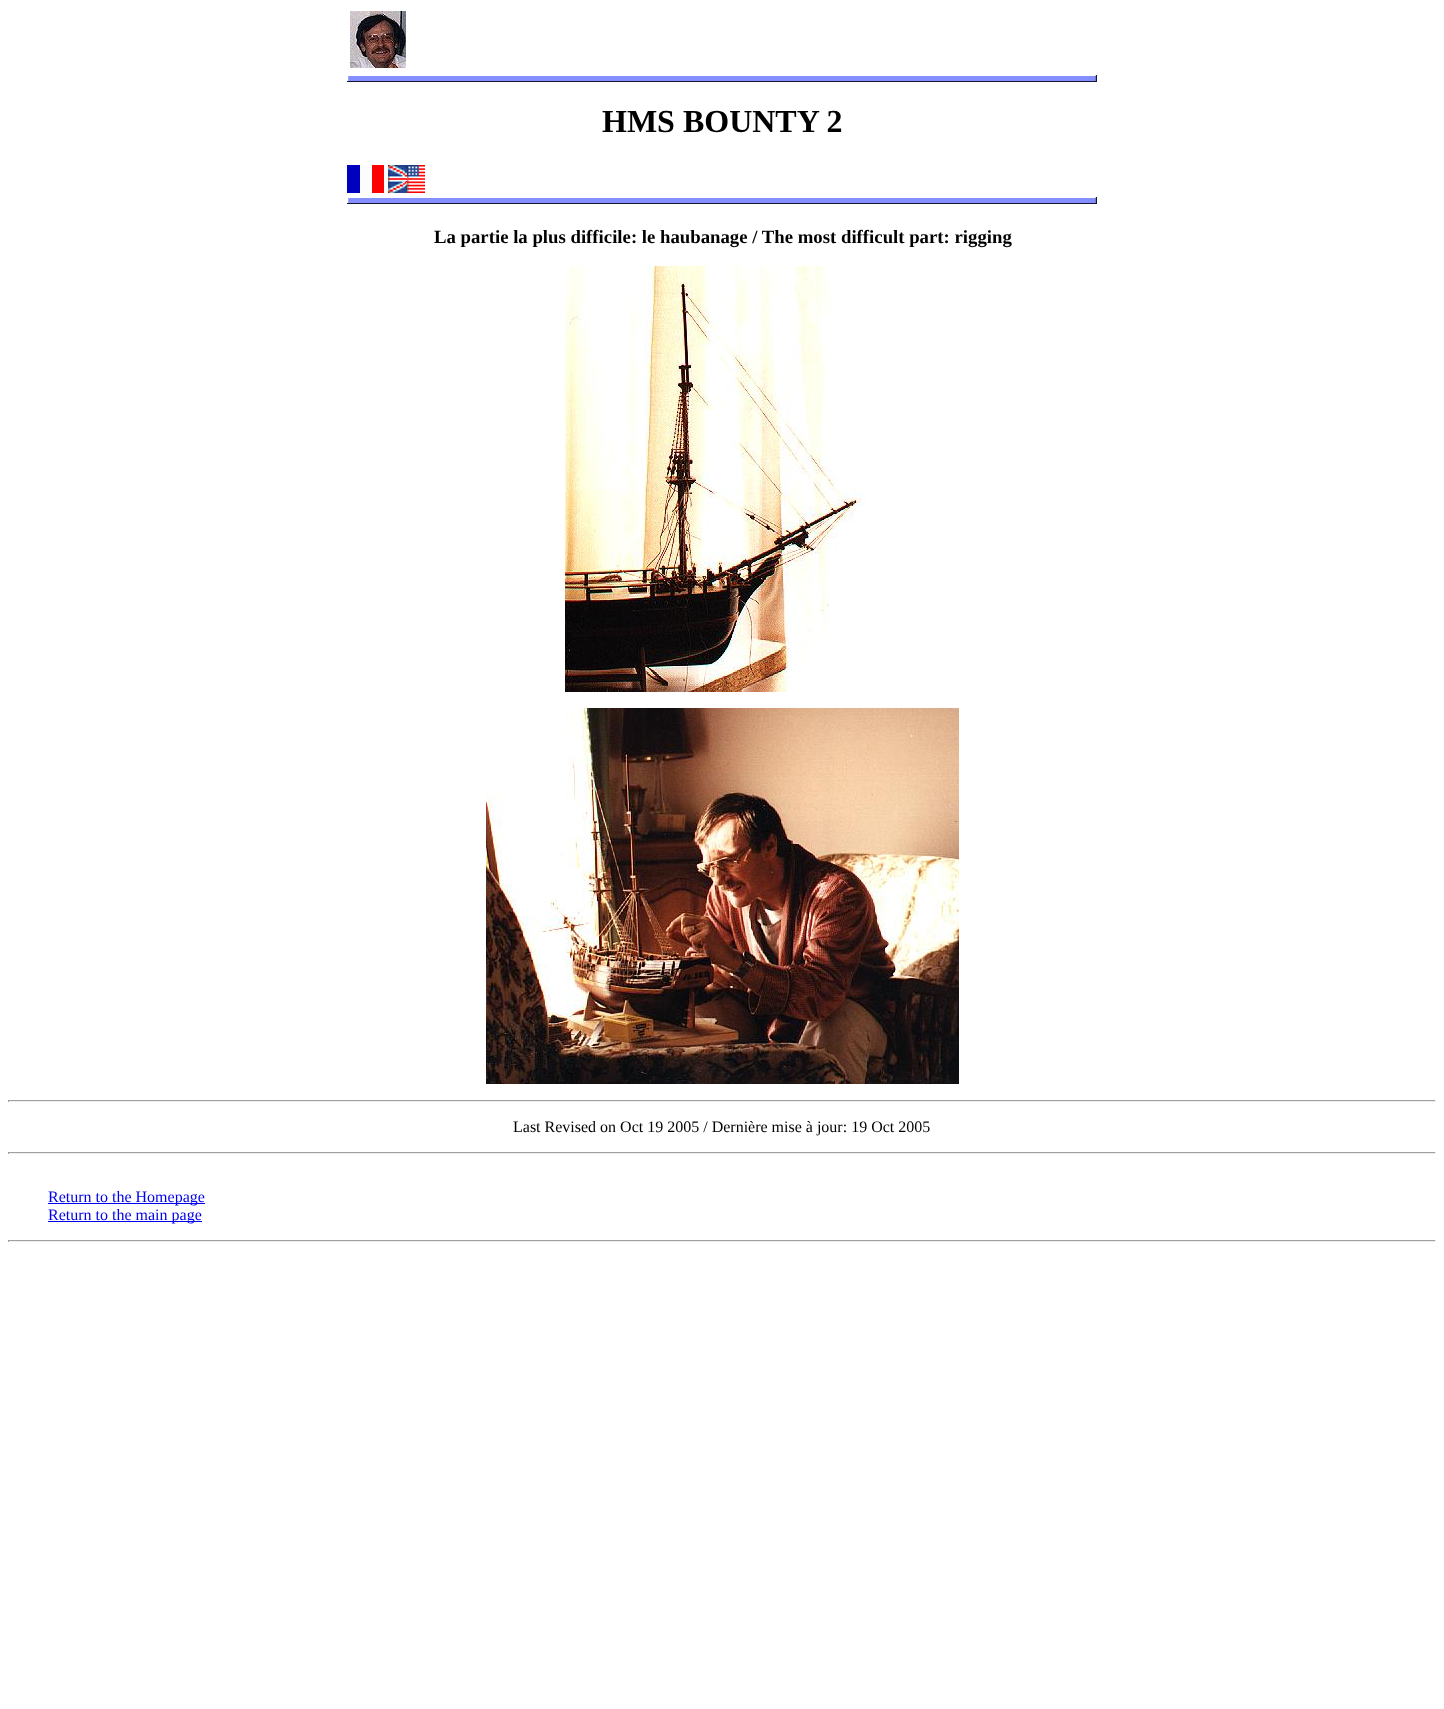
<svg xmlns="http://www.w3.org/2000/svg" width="1444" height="1709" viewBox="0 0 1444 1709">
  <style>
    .t1 { font: bold 32px Liberation Serif; fill: #000; }
    .t2 { font: bold 18.75px Liberation Serif; fill: #000; }
    .t3 { font: 16px Liberation Serif; fill: #000; }
    .t4 { font: 16px Liberation Serif; fill: #00e; }
  </style>
  <rect width="100%" height="100%" fill="#fff"/>
  <image x="350" y="11" width="56" height="57" href="images/1.png"/>
  <image x="347" y="75" width="750" height="7" href="images/2.png"/>
  <text x="602" y="132" class="t1">HMS BOUNTY 2</text>
  <image x="347" y="165" width="37" height="28" href="images/3.png"/>
  <image x="388" y="165" width="37" height="28" href="images/4.png"/>
  <image x="347" y="197" width="750" height="7" href="images/2.png"/>
  <text x="434" y="243" class="t2">La partie la plus difficile: le haubanage / The most difficult part: rigging</text>
  <image x="565" y="266" width="304" height="426" href="images/5.png"/>
  <image x="486" y="708" width="473" height="376" href="images/6.png"/>
  <rect x="8" y="1100" width="1428" height="1" fill="#9f9f9f"/>
  <rect x="1435" y="1100" width="1" height="2" fill="#eee"/>
  <rect x="8" y="1101" width="1428" height="1" fill="#eee"/>
  <rect x="8" y="1100" width="1" height="2" fill="#9f9f9f"/>
  <text x="513" y="1132" class="t3">Last Revised on Oct 19 2005 / Dernière mise à jour: 19 Oct 2005</text>
  <rect x="8" y="1152" width="1428" height="1" fill="#9f9f9f"/>
  <rect x="1435" y="1152" width="1" height="2" fill="#eee"/>
  <rect x="8" y="1153" width="1428" height="1" fill="#eee"/>
  <rect x="8" y="1152" width="1" height="2" fill="#9f9f9f"/>
  <rect x="48" y="1203" width="157" height="1" fill="#00e"/>
  <text x="48" y="1202" class="t4">Return to the Homepage</text>
  <rect x="48" y="1221" width="154" height="1" fill="#00e"/>
  <text x="48" y="1220" class="t4">Return to the main page</text>
  <rect x="8" y="1240" width="1428" height="1" fill="#9f9f9f"/>
  <rect x="1435" y="1240" width="1" height="2" fill="#eee"/>
  <rect x="8" y="1241" width="1428" height="1" fill="#eee"/>
  <rect x="8" y="1240" width="1" height="2" fill="#9f9f9f"/>
</svg>
